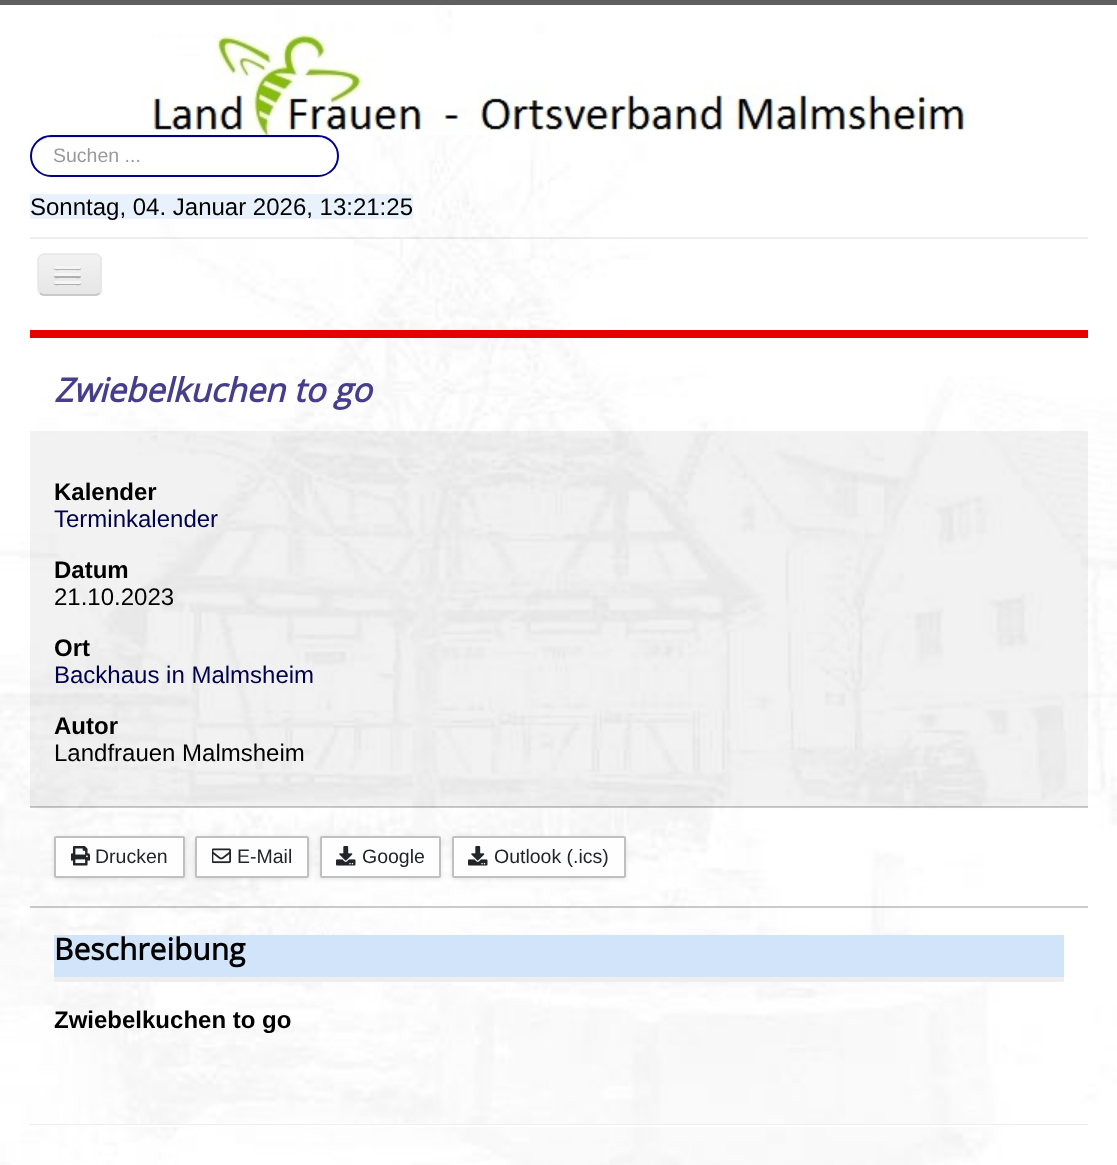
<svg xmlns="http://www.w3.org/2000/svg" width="1117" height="1165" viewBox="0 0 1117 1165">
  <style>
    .t1 { font: 19.5px Liberation Sans; fill: #999; }
    .t2 { font: 24px Liberation Sans; fill: #000; }
    .t3 { font: italic bold 33px Open Sans; fill: #483d8b; }
    .t4 { font: bold 24px Liberation Sans; fill: #000; }
    .t5 { font: 24px Liberation Sans; fill: #00004d; }
    .t6 { font: 19.5px Liberation Sans; fill: #212529; }
    .t7 { font: bold 30px Open Sans; fill: #000; }
  </style>
  <defs>
    <clipPath id="clip1"><rect x="38" y="254" width="64" height="42" rx="6"/></clipPath>
    <linearGradient id="g1" gradientUnits="userSpaceOnUse" x1="70" y1="255" x2="70" y2="294"><stop offset="0" stop-color="#f2f2f2"/><stop offset="1" stop-color="#e6e6e6"/></linearGradient>
  </defs>
  <rect width="100%" height="100%" fill="#fff"/>
  <image x="0" y="5" width="1117" height="1160" href="images/1.png"/>
  <rect x="0" y="0" width="1117" height="5" fill="#5f5f5f"/>
  <image x="152" y="34" width="818" height="101" href="images/2.png"/>
  <rect x="30" y="135" width="309" height="42" rx="21" fill="#fff"/>
  <path d="M51 138H318C329 138 338 147 338 157C338 146 329 137 318 137H52C41 137 32 146 32 157C32 147 40 138 51 138Z" fill="#ececec"/>
  <rect x="31" y="136" width="307" height="40" rx="20" fill="none" stroke="#00008b" stroke-width="2"/>
  <text x="53" y="162" class="t1">Suchen ...</text>
  <rect x="30" y="194" width="383" height="25" fill="#e9f2fc"/>
  <text x="30" y="215" class="t2">Sonntag, 04. Januar 2026, 13:21:25</text>
  <rect x="30" y="237" width="1058" height="2" fill="#00000012"/>
  <rect x="30" y="330" width="1058" height="8" fill="#e60000"/>
  <rect x="38" y="254" width="64" height="42" rx="6" fill="#ededed"/>
  <g clip-path="url(#clip1)">
    <rect x="38" y="255" width="64" height="39" fill="url(#g1)"/>
  </g>
  <path d="M99.5 293C98.5 294 97.5 295 96 295H43.5C42 295 41 294 40 293" fill="none" stroke="#bfbfbf" stroke-width="1.5"/>
  <path d="M40 293C39 292 38 291 38 289.5V259.5C38 258 39 257 40 256C41 255 42 254 43.5 254H96C97.5 254 98.5 255 99.5 256C100.5 257 101 258 101 259.5V289.5C101 291 100.5 292 99.5 293" fill="none" stroke="#e6e6e6" stroke-width="1.5"/>
  <path d="M54 268C52.5 271 59.5 270 59.5 270H75.5C75.5 270 82.5 271 81 268C80.5 268 80 268.5 79.5 268.5H55.5C55 268.5 54.5 268 54 268Z" fill="#b3b3b3"/>
  <rect x="54" y="266" width="27" height="3" rx="1.5" fill="#f5f5f5"/>
  <path d="M54.5 275.5L54 277C54.5 279 59 278 59.5 278H75.5C76 278 80.5 279 81 277L80.5 275.5L79.5 276H55.5Z" fill="#b0b0b0"/>
  <rect x="54" y="273" width="27" height="3" rx="1.5" fill="#f5f5f5"/>
  <path d="M54 283C52.5 286 59.5 285 59.5 285H75.5C75.5 285 82.5 286 81 283C80.5 283 80 283.5 79.5 283.5H55.5C55 283.5 54.5 283 54 283Z" fill="#afafaf"/>
  <rect x="54" y="281" width="27" height="3" rx="1.5" fill="#f5f5f5"/>
  <text x="54" y="402" class="t3">Zwiebelkuchen to go</text>
  <rect x="30" y="431" width="1058" height="376" fill="#0000000d"/>
  <rect x="30" y="806" width="1058" height="2" fill="#00000033"/>
  <text x="54" y="500" class="t4">Kalender</text>
  <text x="54" y="527" class="t5">Terminkalender</text>
  <text x="54" y="578" class="t4">Datum</text>
  <text x="54" y="605" class="t2">21.10.2023</text>
  <text x="54" y="656" class="t4">Ort</text>
  <text x="54" y="683" class="t5">Backhaus in Malmsheim</text>
  <text x="54" y="734" class="t4">Autor</text>
  <text x="54" y="761" class="t2">Landfrauen Malmsheim</text>
  <rect x="30" y="906" width="1058" height="2" fill="#00000033"/>
  <rect x="54" y="837" width="131" height="42" rx="2" fill="#0000001a" filter="blur(2px)"/>
  <rect x="55" y="837" width="129" height="40" rx="1" fill="#fefefe" stroke="#c0c0c0" stroke-width="2"/>
  <image x="71" y="846" width="19" height="20" href="images/3.png"/>
  <text x="95" y="863" class="t6">Drucken</text>
  <rect x="195" y="837" width="114" height="42" rx="2" fill="#0000001a" filter="blur(2px)"/>
  <rect x="196" y="837" width="112" height="40" rx="1" fill="#fefefe" stroke="#c0c0c0" stroke-width="2"/>
  <image x="212" y="848" width="19" height="16" href="images/4.png"/>
  <text x="237" y="863" class="t6">E-Mail</text>
  <rect x="320" y="837" width="121" height="42" rx="2" fill="#0000001a" filter="blur(2px)"/>
  <rect x="321" y="837" width="119" height="40" rx="1" fill="#fefefe" stroke="#c0c0c0" stroke-width="2"/>
  <image x="336" y="846" width="20" height="20" href="images/5.png"/>
  <text x="362" y="863" class="t6">Google</text>
  <rect x="452" y="837" width="174" height="42" rx="2" fill="#0000001a" filter="blur(2px)"/>
  <rect x="453" y="837" width="172" height="40" rx="1" fill="#fefefe" stroke="#c0c0c0" stroke-width="2"/>
  <image x="468" y="846" width="20" height="20" href="images/5.png"/>
  <text x="494" y="863" class="t6">Outlook (.ics)</text>
  <rect x="54" y="935" width="1010" height="42" fill="#d2e4f9"/>
  <rect x="54" y="977" width="1010" height="5" fill="#eee"/>
  <text x="54" y="960" class="t7">Beschreibung</text>
  <text x="54" y="1028" class="t4">Zwiebelkuchen to go</text>
  <rect x="30" y="1124" width="1058" height="1" fill="#eee"/>
  <rect x="103" y="1125" width="890" height="2" fill="#fff"/>
</svg>
